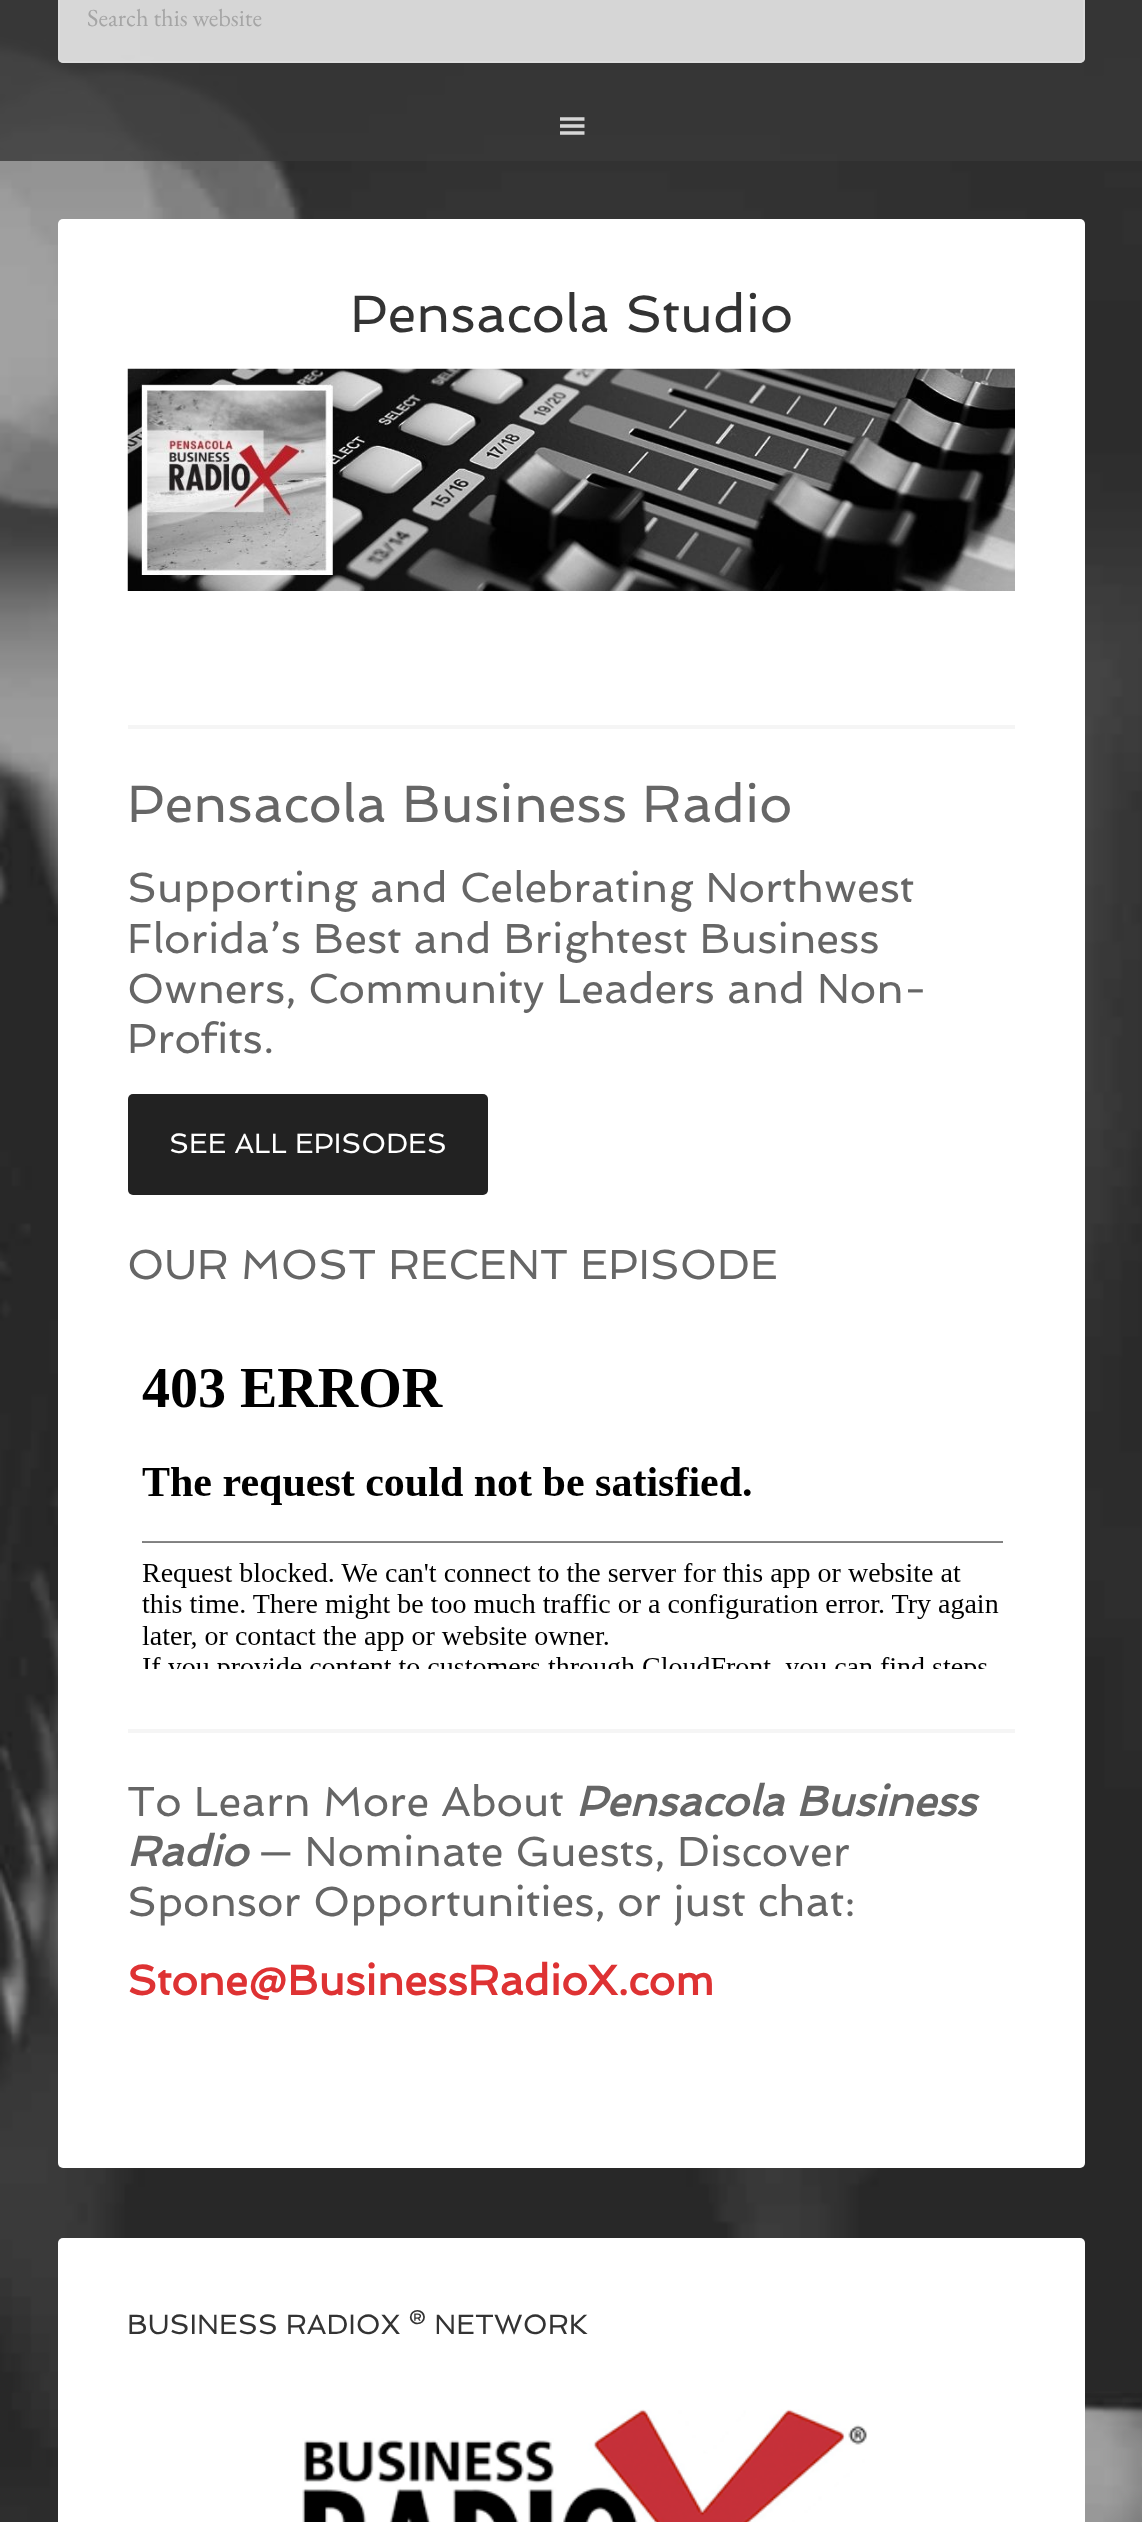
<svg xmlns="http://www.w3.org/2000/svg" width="1142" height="2522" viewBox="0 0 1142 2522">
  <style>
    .t1 { font: 24.5px EB Garamond; fill: #a5a5a5; }
    .t2 { font: 52.5px Spinnaker; fill: #333; }
    .t3 { font: 52.5px Spinnaker; fill: #666; }
    .t4 { font: 42px Spinnaker; fill: #666; }
    .t5 { font: 28px Spinnaker; fill: #fff; }
    .t6 { font: italic bold 42px Spinnaker; fill: #666; }
    .t7 { font: bold 42px Spinnaker; fill: #de3233; }
    .t8 { font: 28px Spinnaker; fill: #333; }
  </style>
  <rect width="100%" height="100%" fill="#fff"/>
  <image x="0" y="0" width="1142" height="2522" href="images/1.png"/>
  <rect x="0" y="0" width="1142" height="91" fill="#383838cc"/>
  <rect x="58" y="-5" width="1027" height="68" rx="5" fill="#ffffffcc"/>
  <rect x="59" y="-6" width="1025" height="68" rx="4" fill="none" stroke="#ddddddcc" stroke-width="2"/>
  <text x="87" y="26" class="t1">Search this website</text>
  <rect x="0" y="91" width="1142" height="70" fill="#383838cc"/>
  <image x="560" y="117" width="25" height="18" href="images/2.png"/>
  <rect x="58" y="219" width="1027" height="1949" rx="5" fill="#fff"/>
  <text x="350" y="332" class="t2">Pensacola Studio</text>
  <image x="127" y="368" width="888" height="223" href="images/3.png"/>
  <rect x="128" y="725" width="887" height="4" fill="#f5f5f5"/>
  <text x="127" y="822" class="t3">Pensacola Business Radio</text>
  <text x="127" y="902" class="t4">Supporting and Celebrating Northwest</text>
  <text x="127" y="953" class="t4">Florida’s Best and Brightest Business</text>
  <text x="127" y="1003" class="t4">Owners, Community Leaders and Non-</text>
  <text x="127" y="1053" class="t4">Profits.</text>
  <rect x="128" y="1094" width="360" height="101" rx="5" fill="#222"/>
  <text x="169" y="1153" class="t5">SEE ALL EPISODES</text>
  <text x="127" y="1279" class="t4">OUR MOST RECENT EPISODE</text>
  <image x="142" y="1369" width="861" height="300" href="images/4.png"/>
  <rect x="128" y="1729" width="887" height="4" fill="#f5f5f5"/>
  <text x="127" y="1816" class="t4">To Learn More About</text>
  <text x="576" y="1816" class="t6">Pensacola Business</text>
  <text x="127" y="1866" class="t6">Radio</text>
  <text x="259" y="1866" class="t4">— Nominate Guests, Discover</text>
  <text x="127" y="1916" class="t4">Sponsor Opportunities, or just chat:</text>
  <text x="127" y="1995" class="t7">Stone@BusinessRadioX.com</text>
  <rect x="58" y="2238" width="1027" height="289" rx="5" fill="#fff"/>
  <text x="127" y="2334" class="t8">BUSINESS RADIOX ® NETWORK</text>
  <image x="302" y="2409" width="566" height="113" href="images/5.png"/>
</svg>
